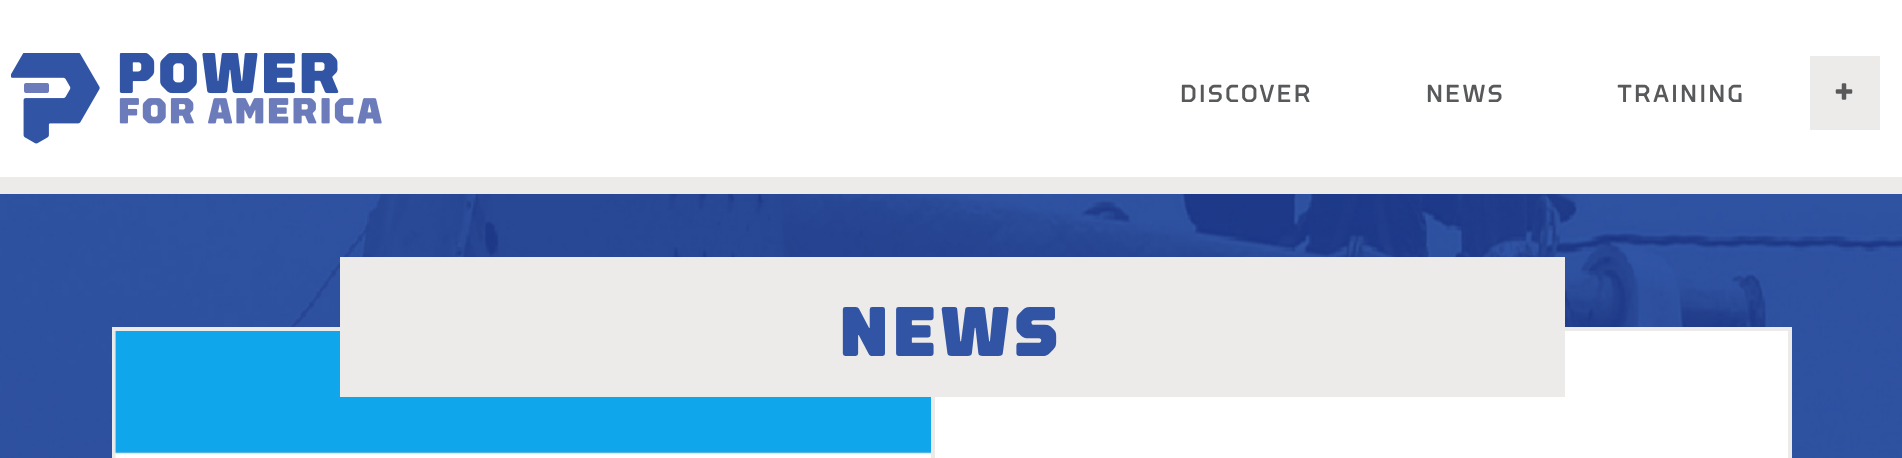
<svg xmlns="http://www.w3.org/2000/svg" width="1902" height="458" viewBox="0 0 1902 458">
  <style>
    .t1 { font: 500 24.5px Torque; letter-spacing: 2px; fill: #57595b; }
    .t2 { font: 900 70px Torque; letter-spacing: 3.5px; fill: #3155a4; }
  </style>
  <rect width="100%" height="100%" fill="#fff"/>
  <rect x="0" y="177" width="1902" height="17" fill="#edebea"/>
  <image x="11" y="53" width="371" height="91" href="images/1.png"/>
  <text x="1180" y="102" class="t1">DISCOVER</text>
  <text x="1426" y="102" class="t1">NEWS</text>
  <text x="1617" y="102" class="t1">TRAINING</text>
  <rect x="1810" y="56" width="70" height="74" fill="#edebea"/>
  <image x="1835" y="83" width="18" height="17" href="images/2.png"/>
  <image x="0" y="194" width="1902" height="264" href="images/3.png"/>
  <rect x="935" y="331" width="853" height="127" fill="#fff"/>
  <rect x="114" y="329" width="1676" height="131" fill="none" stroke="#edebea" stroke-width="4"/>
  <image x="114" y="331" width="817" height="127" href="images/4.png"/>
  <rect x="340" y="257" width="1225" height="140" fill="#edebea"/>
  <text x="839" y="356" class="t2">NEWS</text>
  <rect x="931" y="397" width="4" height="61" fill="#edebea"/>
</svg>
